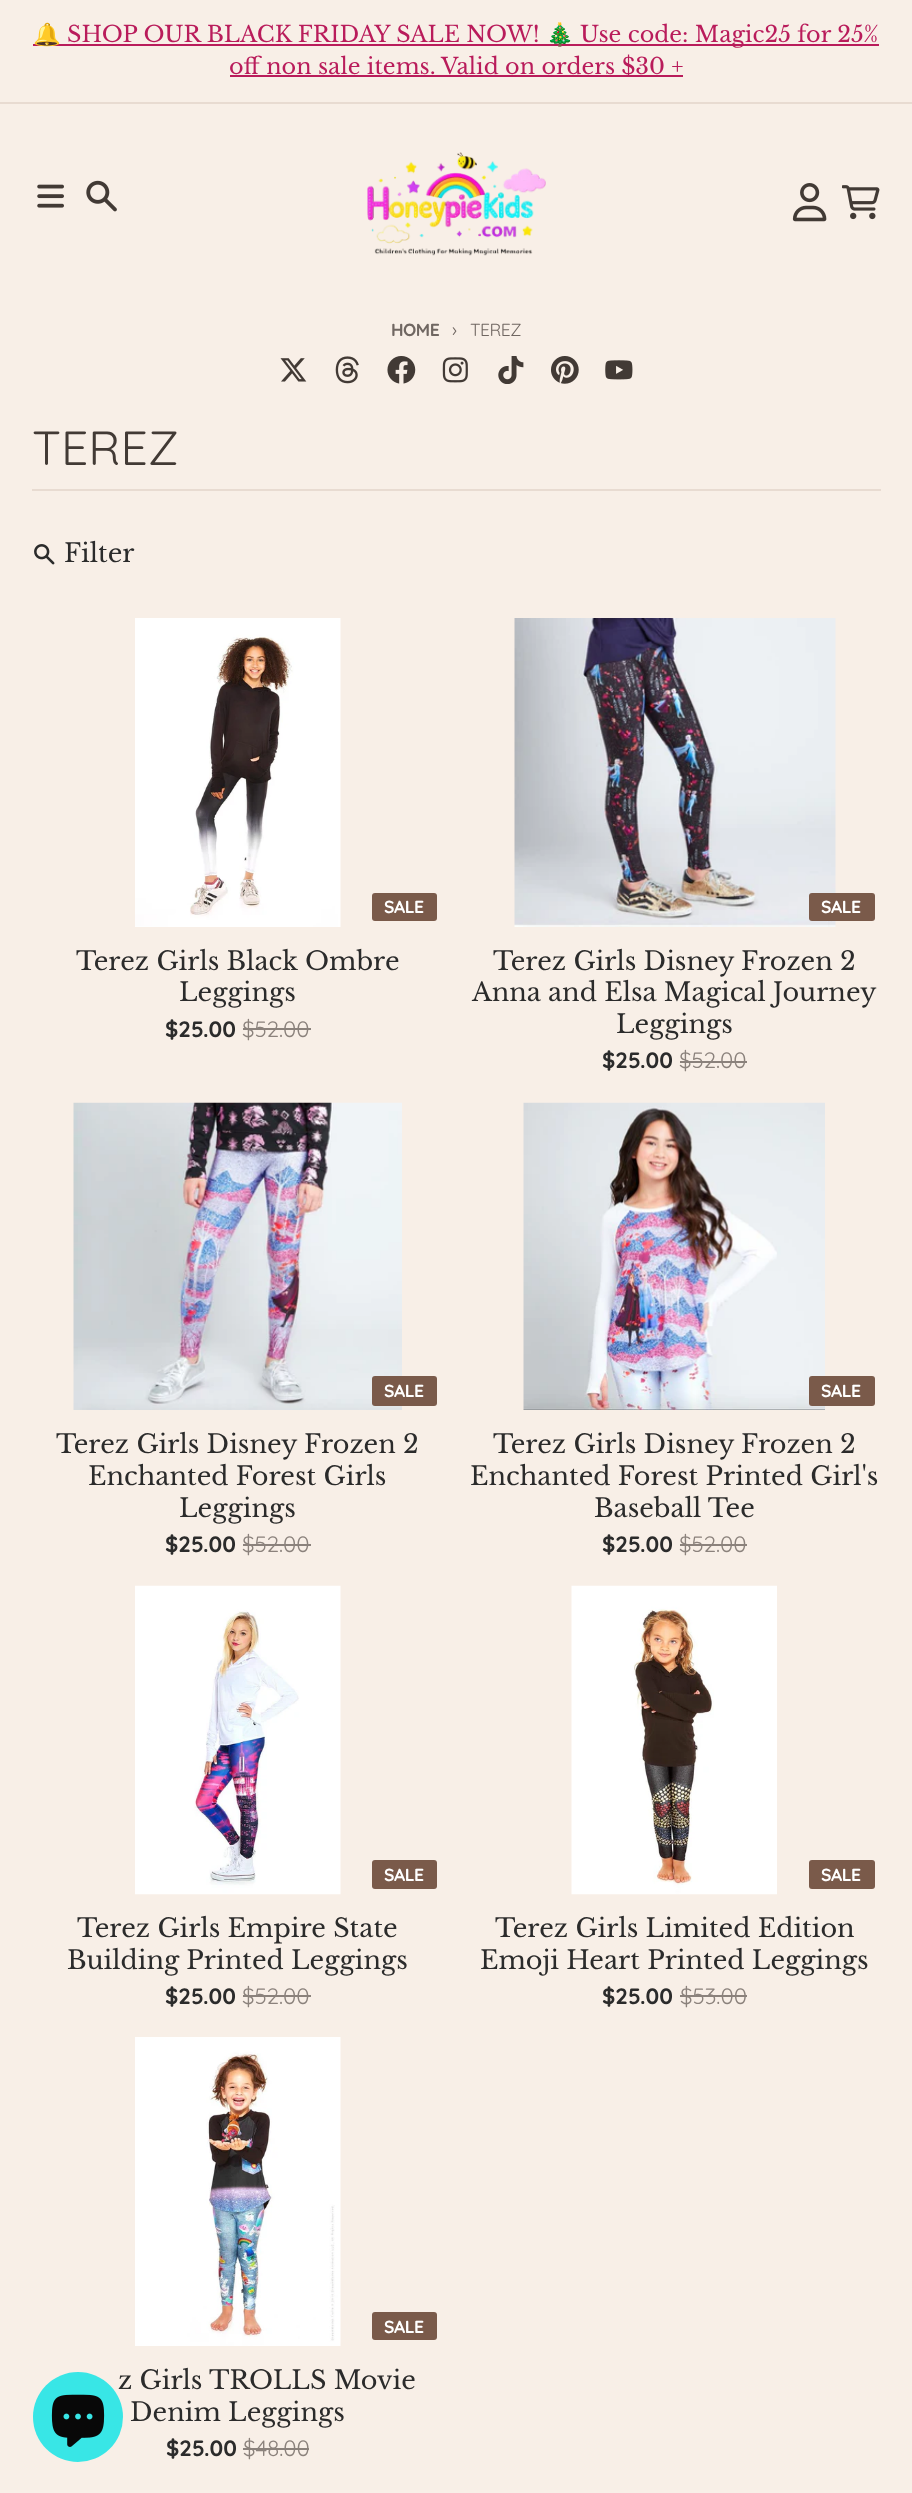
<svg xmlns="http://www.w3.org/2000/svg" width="912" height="2493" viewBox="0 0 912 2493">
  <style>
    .t1 { font: 22.3px Noto Color Emoji; fill: #b91c5b; }
    .t2 { font: 22.3px Libre Baskerville; fill: #b91c5b; }
    .t3 { font: bold 17.5px Quicksand; letter-spacing: -0.5px; fill: #706762; }
    .t4 { font: 19px Quicksand; letter-spacing: -0.5px; fill: #706762; }
    .t5 { font: 17.5px Quicksand; letter-spacing: -0.5px; fill: #706762; }
    .t6 { font: 48px Quicksand; fill: #423a35; }
    .t7 { font: 25.5px Libre Baskerville; fill: #2b2b2b; }
    .t8 { font: bold 17.5px Quicksand; letter-spacing: -0.5px; fill: #fff; }
    .t9 { font: bold 22.3px Quicksand; fill: #2b2b2b; }
    .t10 { font: 22.3px Quicksand; fill: #8b827c; }
  </style>
  <rect width="100%" height="100%" fill="#f8efe7"/>
  <rect x="0" y="102" width="912" height="2" fill="#e8dbd1"/>
  <rect x="33" y="44" width="846" height="2" fill="#b91c5b"/>
  <text x="33" y="42" class="t1">🔔</text>
  <text x="67" y="42" class="t2">SHOP OUR BLACK FRIDAY SALE NOW!</text>
  <text x="546" y="42" class="t1">🎄</text>
  <text x="580" y="42" class="t2">Use code: Magic25 for 25%</text>
  <rect x="230" y="75" width="453" height="2" fill="#b91c5b"/>
  <text x="229" y="74" class="t2">off non sale items. Valid on orders $30 +</text>
  <image x="37" y="184" width="27" height="24" href="images/1.png"/>
  <image x="86" y="180" width="31" height="32" href="images/2.png"/>
  <image x="367" y="152" width="179" height="104" href="images/3.png"/>
  <image x="792" y="183" width="35" height="39" href="images/4.png"/>
  <image x="842" y="185" width="38" height="35" href="images/5.png"/>
  <text x="391" y="336" class="t3">HOME</text>
  <text x="452" y="336" class="t4">›</text>
  <text x="470" y="336" class="t5">TEREZ</text>
  <image x="280" y="358" width="27" height="24" href="images/6.png"/>
  <image x="335" y="356" width="24" height="28" href="images/7.png"/>
  <image x="387" y="356" width="29" height="28" href="images/8.png"/>
  <image x="442" y="357" width="26" height="26" href="images/9.png"/>
  <image x="498" y="356" width="26" height="28" href="images/10.png"/>
  <image x="551" y="356" width="28" height="28" href="images/11.png"/>
  <image x="605" y="360" width="28" height="20" href="images/12.png"/>
  <rect x="32" y="489" width="849" height="2" fill="#e8dbd1"/>
  <text x="32" y="465" class="t6">TEREZ</text>
  <image x="34" y="544" width="21" height="21" href="images/13.png"/>
  <text x="64" y="562" class="t7">Filter</text>
  <image x="135" y="618" width="206" height="309" href="images/14.png"/>
  <rect x="372" y="893" width="65" height="28" rx="3" fill="#7a5a4a"/>
  <text x="384" y="913" class="t8">SALE</text>
  <text x="76" y="970" class="t7">Terez Girls Black Ombre</text>
  <text x="179" y="1001" class="t7">Leggings</text>
  <text x="165" y="1037" class="t9">$25.00</text>
  <text x="242" y="1037" class="t10">$52.00</text>
  <rect x="243" y="1028" width="68" height="2" fill="#8b827c"/>
  <image x="514" y="618" width="322" height="309" href="images/15.png"/>
  <rect x="809" y="893" width="66" height="28" rx="3" fill="#7a5a4a"/>
  <text x="821" y="913" class="t8">SALE</text>
  <text x="493" y="970" class="t7">Terez Girls Disney Frozen 2</text>
  <text x="472" y="1001" class="t7">Anna and Elsa Magical Journey</text>
  <text x="616" y="1033" class="t7">Leggings</text>
  <text x="602" y="1068" class="t9">$25.00</text>
  <text x="679" y="1068" class="t10">$52.00</text>
  <rect x="680" y="1061" width="67" height="2" fill="#8b827c"/>
  <image x="73" y="1102" width="329" height="308" href="images/16.png"/>
  <rect x="372" y="1376" width="65" height="30" rx="3" fill="#7a5a4a"/>
  <text x="384" y="1397" class="t8">SALE</text>
  <text x="56" y="1453" class="t7">Terez Girls Disney Frozen 2</text>
  <text x="88" y="1485" class="t7">Enchanted Forest Girls</text>
  <text x="179" y="1517" class="t7">Leggings</text>
  <text x="165" y="1552" class="t9">$25.00</text>
  <text x="242" y="1552" class="t10">$52.00</text>
  <rect x="243" y="1544" width="68" height="2" fill="#8b827c"/>
  <image x="523" y="1102" width="302" height="308" href="images/17.png"/>
  <rect x="809" y="1376" width="66" height="30" rx="3" fill="#7a5a4a"/>
  <text x="821" y="1397" class="t8">SALE</text>
  <text x="493" y="1453" class="t7">Terez Girls Disney Frozen 2</text>
  <text x="470" y="1485" class="t7">Enchanted Forest Printed Girl's</text>
  <text x="594" y="1517" class="t7">Baseball Tee</text>
  <text x="602" y="1552" class="t9">$25.00</text>
  <text x="679" y="1552" class="t10">$52.00</text>
  <rect x="680" y="1544" width="67" height="2" fill="#8b827c"/>
  <image x="135" y="1585" width="206" height="310" href="images/18.png"/>
  <rect x="372" y="1860" width="65" height="29" rx="3" fill="#7a5a4a"/>
  <text x="384" y="1881" class="t8">SALE</text>
  <text x="77" y="1937" class="t7">Terez Girls Empire State</text>
  <text x="67" y="1969" class="t7">Building Printed Leggings</text>
  <text x="165" y="2004" class="t9">$25.00</text>
  <text x="242" y="2004" class="t10">$52.00</text>
  <rect x="243" y="1995" width="68" height="2" fill="#8b827c"/>
  <image x="571" y="1585" width="206" height="310" href="images/19.png"/>
  <rect x="809" y="1860" width="66" height="29" rx="3" fill="#7a5a4a"/>
  <text x="821" y="1881" class="t8">SALE</text>
  <text x="495" y="1937" class="t7">Terez Girls Limited Edition</text>
  <text x="480" y="1969" class="t7">Emoji Heart Printed Leggings</text>
  <text x="602" y="2004" class="t9">$25.00</text>
  <text x="680" y="2004" class="t10">$53.00</text>
  <rect x="680" y="1995" width="67" height="2" fill="#8b827c"/>
  <image x="135" y="2037" width="206" height="309" href="images/20.png"/>
  <rect x="372" y="2312" width="65" height="28" rx="3" fill="#7a5a4a"/>
  <text x="384" y="2333" class="t8">SALE</text>
  <text x="118" y="2389" class="t7">z Girls TROLLS Movie</text>
  <text x="130" y="2421" class="t7">Denim Leggings</text>
  <text x="166" y="2456" class="t9">$25.00</text>
  <text x="243" y="2456" class="t10">$48.00</text>
  <rect x="243" y="2448" width="66" height="2" fill="#8b827c"/>
  <circle cx="78" cy="2417" r="45" fill="#38e6e6"/>
  <image x="51" y="2394" width="54" height="53" href="images/21.png"/>
</svg>
